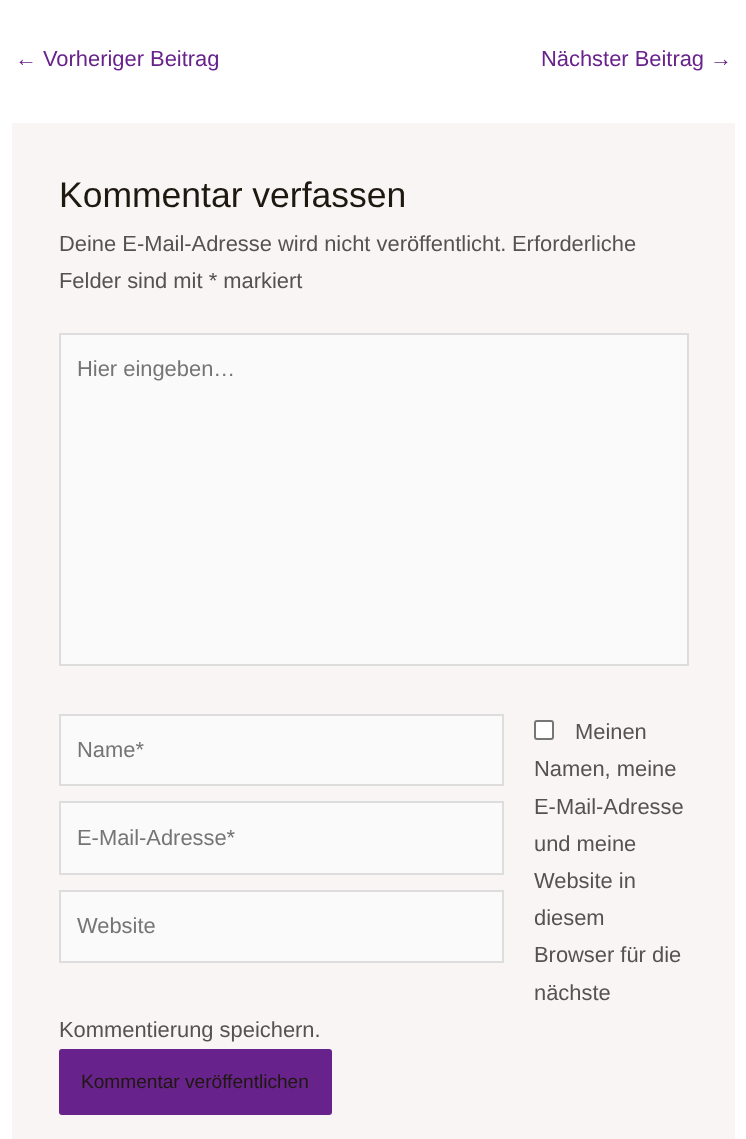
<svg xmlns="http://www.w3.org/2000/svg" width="746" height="1139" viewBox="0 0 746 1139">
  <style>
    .t1 { font: 21.9px Liberation Sans; fill: #68228b; }
    .t2 { font: 35.5px Liberation Sans; fill: #1e1810; }
    .t3 { font: 21.9px Liberation Sans; fill: #575250; }
    .t4 { font: 21.9px Liberation Sans; fill: #757575; }
    .t5 { font: 19.1px Liberation Sans; fill: #1e1810; }
  </style>
  <rect width="100%" height="100%" fill="#fff"/>
  <text x="15" y="66" class="t1">← Vorheriger Beitrag</text>
  <text x="541" y="66" class="t1">Nächster Beitrag →</text>
  <rect x="12" y="123" width="723" height="1016" fill="#f8f5f4"/>
  <text x="59" y="207" class="t2">Kommentar verfassen</text>
  <text x="59" y="251" class="t3">Deine E-Mail-Adresse wird nicht veröffentlicht.</text>
  <text x="512" y="251" class="t3">Erforderliche</text>
  <text x="59" y="288" class="t3">Felder sind mit * markiert</text>
  <rect x="60" y="334" width="628" height="331" fill="#fafafa" stroke="#ddd" stroke-width="2"/>
  <text x="77" y="376" class="t4">Hier eingeben…</text>
  <rect x="535" y="721" width="18" height="18" rx="2" fill="#fff" stroke="#767676" stroke-width="2"/>
  <text x="575" y="739" class="t3">Meinen</text>
  <text x="534" y="776" class="t3">Namen, meine</text>
  <text x="534" y="814" class="t3">E-Mail-Adresse</text>
  <text x="534" y="851" class="t3">und meine</text>
  <text x="534" y="888" class="t3">Website in</text>
  <text x="534" y="925" class="t3">diesem</text>
  <text x="534" y="962" class="t3">Browser für die</text>
  <text x="534" y="1000" class="t3">nächste</text>
  <text x="59" y="1037" class="t3">Kommentierung speichern.</text>
  <rect x="60" y="715" width="443" height="70" fill="#fafafa" stroke="#ddd" stroke-width="2"/>
  <text x="77" y="757" class="t4">Name*</text>
  <rect x="60" y="802" width="443" height="72" fill="#fafafa" stroke="#ddd" stroke-width="2"/>
  <text x="77" y="845" class="t4">E-Mail-Adresse*</text>
  <rect x="60" y="891" width="443" height="71" fill="#fafafa" stroke="#ddd" stroke-width="2"/>
  <text x="77" y="933" class="t4">Website</text>
  <rect x="59" y="1049" width="273" height="66" rx="3" fill="#68228b"/>
  <text x="81" y="1088" class="t5">Kommentar veröffentlichen</text>
</svg>
